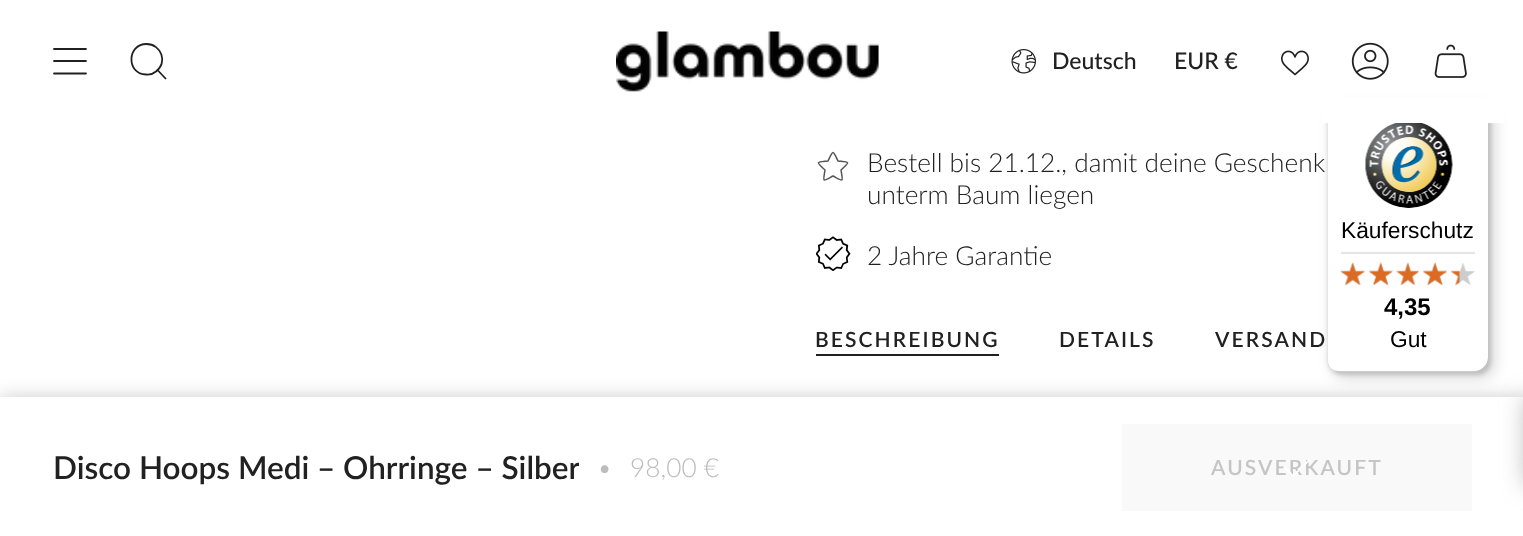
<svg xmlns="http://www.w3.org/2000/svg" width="1523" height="536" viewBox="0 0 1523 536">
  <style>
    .t1 { font: 500 23px Lato; fill: #212121; }
    .t2 { font: 300 26.25px Lato; fill: #212121; }
    .t3 { font: 600 21px Lato; letter-spacing: 2.1px; fill: #212121; }
    .t4 { font: 600 31.5px Lato; fill: #212121; }
    .t5 { font: 300 26.25px Lato; fill: #bcbcbc; }
    .t6 { font: 600 21px Lato; letter-spacing: 2.1px; fill: #c5c5c5; }
    .t7 { font: 22.75px Liberation Sans; fill: #000; }
    .t8 { font: bold 24px Liberation Sans; fill: #000; }
  </style>
  <defs>
    <clipPath id="clip1"><rect x="53" y="446" width="526" height="44"/></clipPath>
  </defs>
  <rect width="100%" height="100%" fill="#fff"/>
  <path d="M54 49H86M54 61H86M54 73.5H86" fill="none" stroke="#212121" stroke-width="1.8" stroke-linecap="round" stroke-linejoin="round"/>
  <path d="M146.5 44C161.5 44 168 63 156 71.5C153 74 149.5 75 146 74.5C126 74 127 44 146.5 44ZM157.5 70L166 79" fill="none" stroke="#212121" stroke-width="1.8"/>
  <image x="616" y="31" width="263" height="61" href="images/1.png"/>
  <image x="1011" y="49" width="25" height="25" href="images/2.png"/>
  <text x="1052" y="69" class="t1">Deutsch</text>
  <text x="1174" y="69" class="t1">EUR €</text>
  <image x="1281" y="50" width="28" height="26" href="images/3.png"/>
  <image x="1351" y="42" width="38" height="38" href="images/4.png"/>
  <image x="1434" y="44" width="33" height="34" href="images/5.png"/>
  <rect x="1332" y="107" width="163" height="271" rx="14" fill="#00000026" filter="blur(7px)"/>
  <rect x="1328" y="103" width="163" height="272" rx="14" fill="#00000026" filter="blur(2px)"/>
  <rect x="1327" y="102" width="162" height="271" rx="14" fill="#fff"/>
  <path d="M1342 103H1477C1479 103 1481 103 1482 104C1480 103 1478 102 1475 102H1341C1333 102 1327 108 1327 116V359C1327 364 1329 368 1333 370C1330 368 1328 364 1328 360V117C1328 110 1335 103 1342 103Z" fill="#0000001a"/>
  <path d="M1331 368C1333 371 1337 373 1341 373H1475C1483 373 1489 367 1489 359V116C1489 113 1488 111 1487 109C1488 110 1488 112 1488 114V357C1488 365 1481 371 1474 371H1339C1336 371 1333 370 1331 368Z" fill="#00000033"/>
  <path d="M1332 370C1335 372 1338 373 1341 373H1475C1483 373 1489 367 1489 359V116C1489 113 1488 110 1487 108C1488 110 1488 112 1488 114V358C1488 365 1482 372 1474 372H1339C1337 372 1334 371 1332 370Z" fill="#32323233"/>
  <path d="M1332 369C1334 372 1337 373 1341 373H1475C1483 373 1489 367 1489 359V116C1489 112 1488 109 1485 107C1487 109 1488 112 1488 115V358C1488 366 1482 372 1474 372H1340C1337 372 1334 371 1332 369Z" fill="#ffffff4d"/>
  <rect x="1322" y="97" width="183" height="26" fill="#fff"/>
  <path d="M828 161C833.5 149.5 832.5 149.5 838 161C850.5 162.5 850 161.5 841 170C843 182.5 844 182 833 176C822 182 823 182.5 825 170C816 161.5 815.5 162.5 828 161Z" fill="none" stroke="#545454" stroke-width="1.5" stroke-linecap="round" stroke-linejoin="round"/>
  <text x="867" y="172" class="t2">Bestell bis 21.12., damit deine Geschenk</text>
  <text x="867" y="204" class="t2">unterm Baum liegen</text>
  <image x="816" y="236" width="35" height="35" href="images/6.png"/>
  <text x="867" y="265" class="t2">2 Jahre Garantie</text>
  <text x="815" y="347" class="t3">BESCHREIBUNG</text>
  <rect x="816" y="354" width="183" height="2" fill="#212121"/>
  <text x="1059" y="347" class="t3">DETAILS</text>
  <text x="1215" y="347" class="t3">VERSAND</text>
  <rect x="0" y="397" width="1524" height="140" fill="#00000033" filter="blur(9px)"/>
  <rect x="0" y="397" width="1523" height="139" fill="#fff"/>
  <text x="53" y="479" class="t4">Disco Hoops Medi</text>
  <g clip-path="url(#clip1)">
    <text x="317" y="479" class="t4">– Ohrringe – Silber</text>
  </g>
  <text x="597" y="477" class="t5">•</text>
  <text x="630" y="477" class="t5">98,00 €</text>
  <rect x="1122" y="424" width="350" height="87" fill="#f9f9f9"/>
  <circle cx="1297" cy="467" r="12" fill="none" stroke="#ffffff0d" stroke-width="1.8"/>
  <text x="1211" y="475" class="t6">AUSVERKAUFT</text>
  <path d="M1292 476L1309 459L1310.5 460L1293 477.5Z" fill="#fff"/>
  <path d="M1283 467.5L1284.5 466L1294.5 476L1293 477.5Z" fill="#fff"/>
  <image x="1365" y="123" width="88" height="85" href="images/7.png"/>
  <text x="1341" y="238" class="t7">Käuferschutz</text>
  <rect x="1341" y="252" width="134" height="2" fill="#e5e5e5"/>
  <image x="1340" y="263" width="25" height="22" href="images/8.png"/>
  <image x="1369" y="262" width="24" height="23" href="images/9.png"/>
  <image x="1396" y="263" width="23" height="22" href="images/10.png"/>
  <image x="1423" y="262" width="24" height="23" href="images/11.png"/>
  <image x="1451" y="263" width="24" height="22" href="images/12.png"/>
  <image x="1340" y="262" width="25" height="24" href="images/13.png"/>
  <image x="1368" y="262" width="25" height="24" href="images/14.png"/>
  <image x="1396" y="262" width="24" height="24" href="images/15.png"/>
  <image x="1422" y="262" width="25" height="24" href="images/16.png"/>
  <image x="1450" y="270" width="10" height="16" href="images/17.png"/>
  <text x="1384" y="315" class="t8">4,35</text>
  <text x="1390" y="347" class="t7">Gut</text>
  <rect x="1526" y="397" width="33" height="88" fill="#75757580" filter="blur(12px)"/>
</svg>
